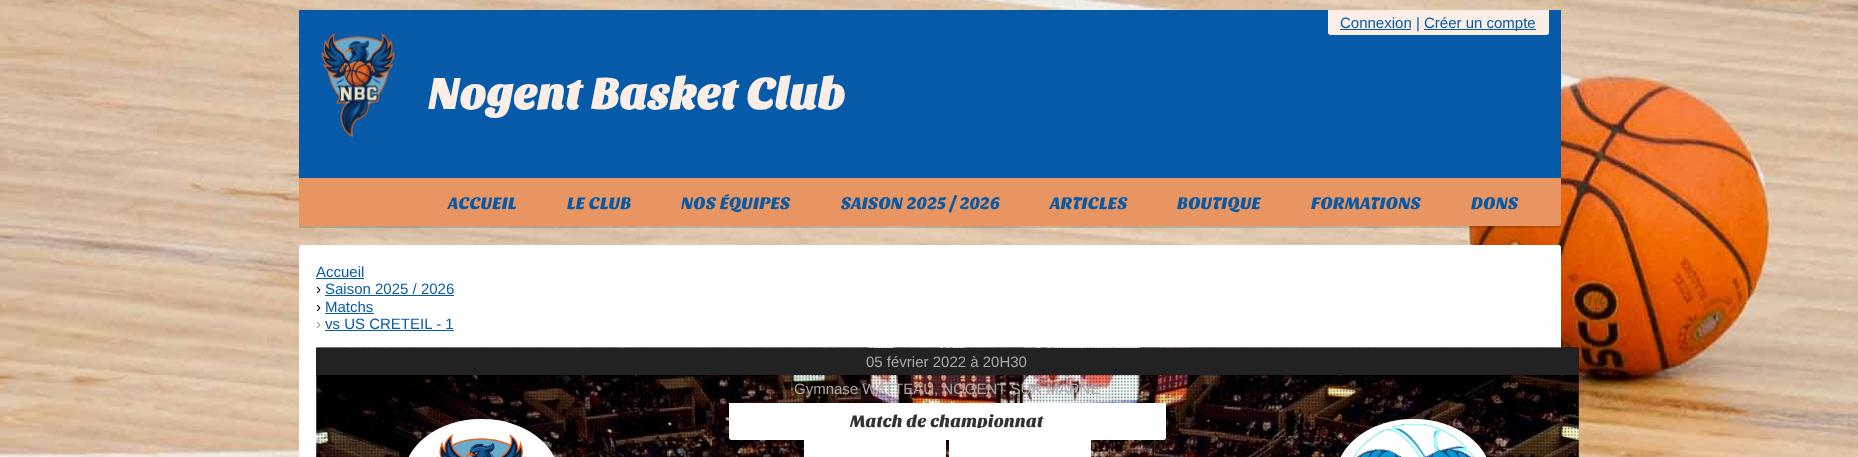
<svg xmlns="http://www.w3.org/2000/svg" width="1858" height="457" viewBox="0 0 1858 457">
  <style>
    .t1 { font: 15px Liberation Sans; fill: #075aa8; }
    .t2 { font: bold 45px Sansita One; fill: #faeee6; }
    .t3 { font: 17.5px Sansita One; fill: #075aa8; }
    .t4 { font: 15px Liberation Sans; fill: #000; }
    .t5 { font: 15px Liberation Sans; fill: #999; }
    .t6 { font: 15px Liberation Sans; fill: #aaa; }
    .t7 { font: 17.5px Sansita One; fill: #333; }
  </style>
  <rect width="100%" height="100%" fill="#fff"/>
  <image x="0" y="0" width="1858" height="457" href="images/1.png"/>
  <rect x="299" y="11" width="1262" height="217" rx="2.5" fill="#00000026" filter="blur(0.5px)"/>
  <path d="M299 10H1561V223.5C1561 225 1560 226 1558.5 226H301.5C300 226 299 225 299 223.5Z" fill="#e89561"/>
  <rect x="299" y="10" width="1262" height="168" fill="#075aa8"/>
  <path d="M1328 10H1549V32.5C1549 34 1548 35 1546.5 35H1330.5C1329 35 1328 34 1328 32.5Z" fill="#faeee6"/>
  <rect x="1340" y="29" width="71" height="1" fill="#075aa8"/>
  <text x="1340" y="28" class="t1">Connexion |</text>
  <rect x="1424" y="29" width="112" height="1" fill="#075aa8"/>
  <text x="1424" y="28" class="t1">Créer un compte</text>
  <image x="321" y="33" width="75" height="105" href="images/2.png"/>
  <text x="428" y="109" class="t2">Nogent Basket Club</text>
  <text x="448" y="209" class="t3">ACCUEIL</text>
  <text x="567" y="209" class="t3">LE CLUB</text>
  <text x="681" y="209" class="t3">NOS ÉQUIPES</text>
  <text x="841" y="209" class="t3">SAISON 2025 / 2026</text>
  <text x="1050" y="209" class="t3">ARTICLES</text>
  <text x="1177" y="209" class="t3">BOUTIQUE</text>
  <text x="1311" y="209" class="t3">FORMATIONS</text>
  <text x="1471" y="209" class="t3">DONS</text>
  <rect x="299" y="245" width="1262" height="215" rx="2.5" fill="#fff"/>
  <text x="316" y="277" class="t1">Accueil</text>
  <rect x="316" y="278" width="48" height="1" fill="#075aa8"/>
  <text x="316" y="294" class="t4">›</text>
  <text x="325" y="294" class="t1">Saison 2025 / 2026</text>
  <rect x="325" y="295" width="129" height="1" fill="#075aa8"/>
  <text x="316" y="312" class="t4">›</text>
  <text x="325" y="312" class="t1">Matchs</text>
  <rect x="325" y="313" width="49" height="1" fill="#075aa8"/>
  <text x="316" y="329" class="t5">›</text>
  <text x="325" y="329" class="t1">vs US CRETEIL - 1</text>
  <rect x="325" y="330" width="129" height="1" fill="#075aa8"/>
  <image x="316" y="347" width="1263" height="110" href="images/3.png"/>
  <image x="316" y="347" width="1263" height="110" href="images/4.png"/>
  <rect x="316" y="348" width="1263" height="27" fill="#222"/>
  <text x="866" y="367" class="t6">05 février 2022 à 20H30</text>
  <text x="794" y="394" class="t6">Gymnase WATTEAU, NOGENT SUR MARNE</text>
  <path d="M729 403H1166V437.5C1166 439 1165 440 1163.5 440H731.5C730 440 729 439 729 437.5Z" fill="#fff"/>
  <text x="850" y="427" class="t7">Match de championnat</text>
  <rect x="404" y="419" width="155" height="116" rx="77.5" fill="#fff"/>
  <rect x="405.5" y="420.5" width="152" height="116" rx="76" fill="none" stroke="#fafafa80" stroke-width="3"/>
  <image x="437" y="434" width="89" height="23" href="images/5.png"/>
  <path d="M810 428H946V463H804V434C804 430.5 806.5 428 810 428Z" fill="#fff"/>
  <path d="M949 428H1085C1088.5 428 1091 430.5 1091 434V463H949Z" fill="#fff"/>
  <rect x="1336" y="419" width="155" height="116" rx="77.5" fill="#fff"/>
  <rect x="1337.5" y="420.5" width="152" height="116" rx="76" fill="none" stroke="#fafafa80" stroke-width="3"/>
  <image x="1353" y="423" width="121" height="34" href="images/6.png"/>
</svg>
